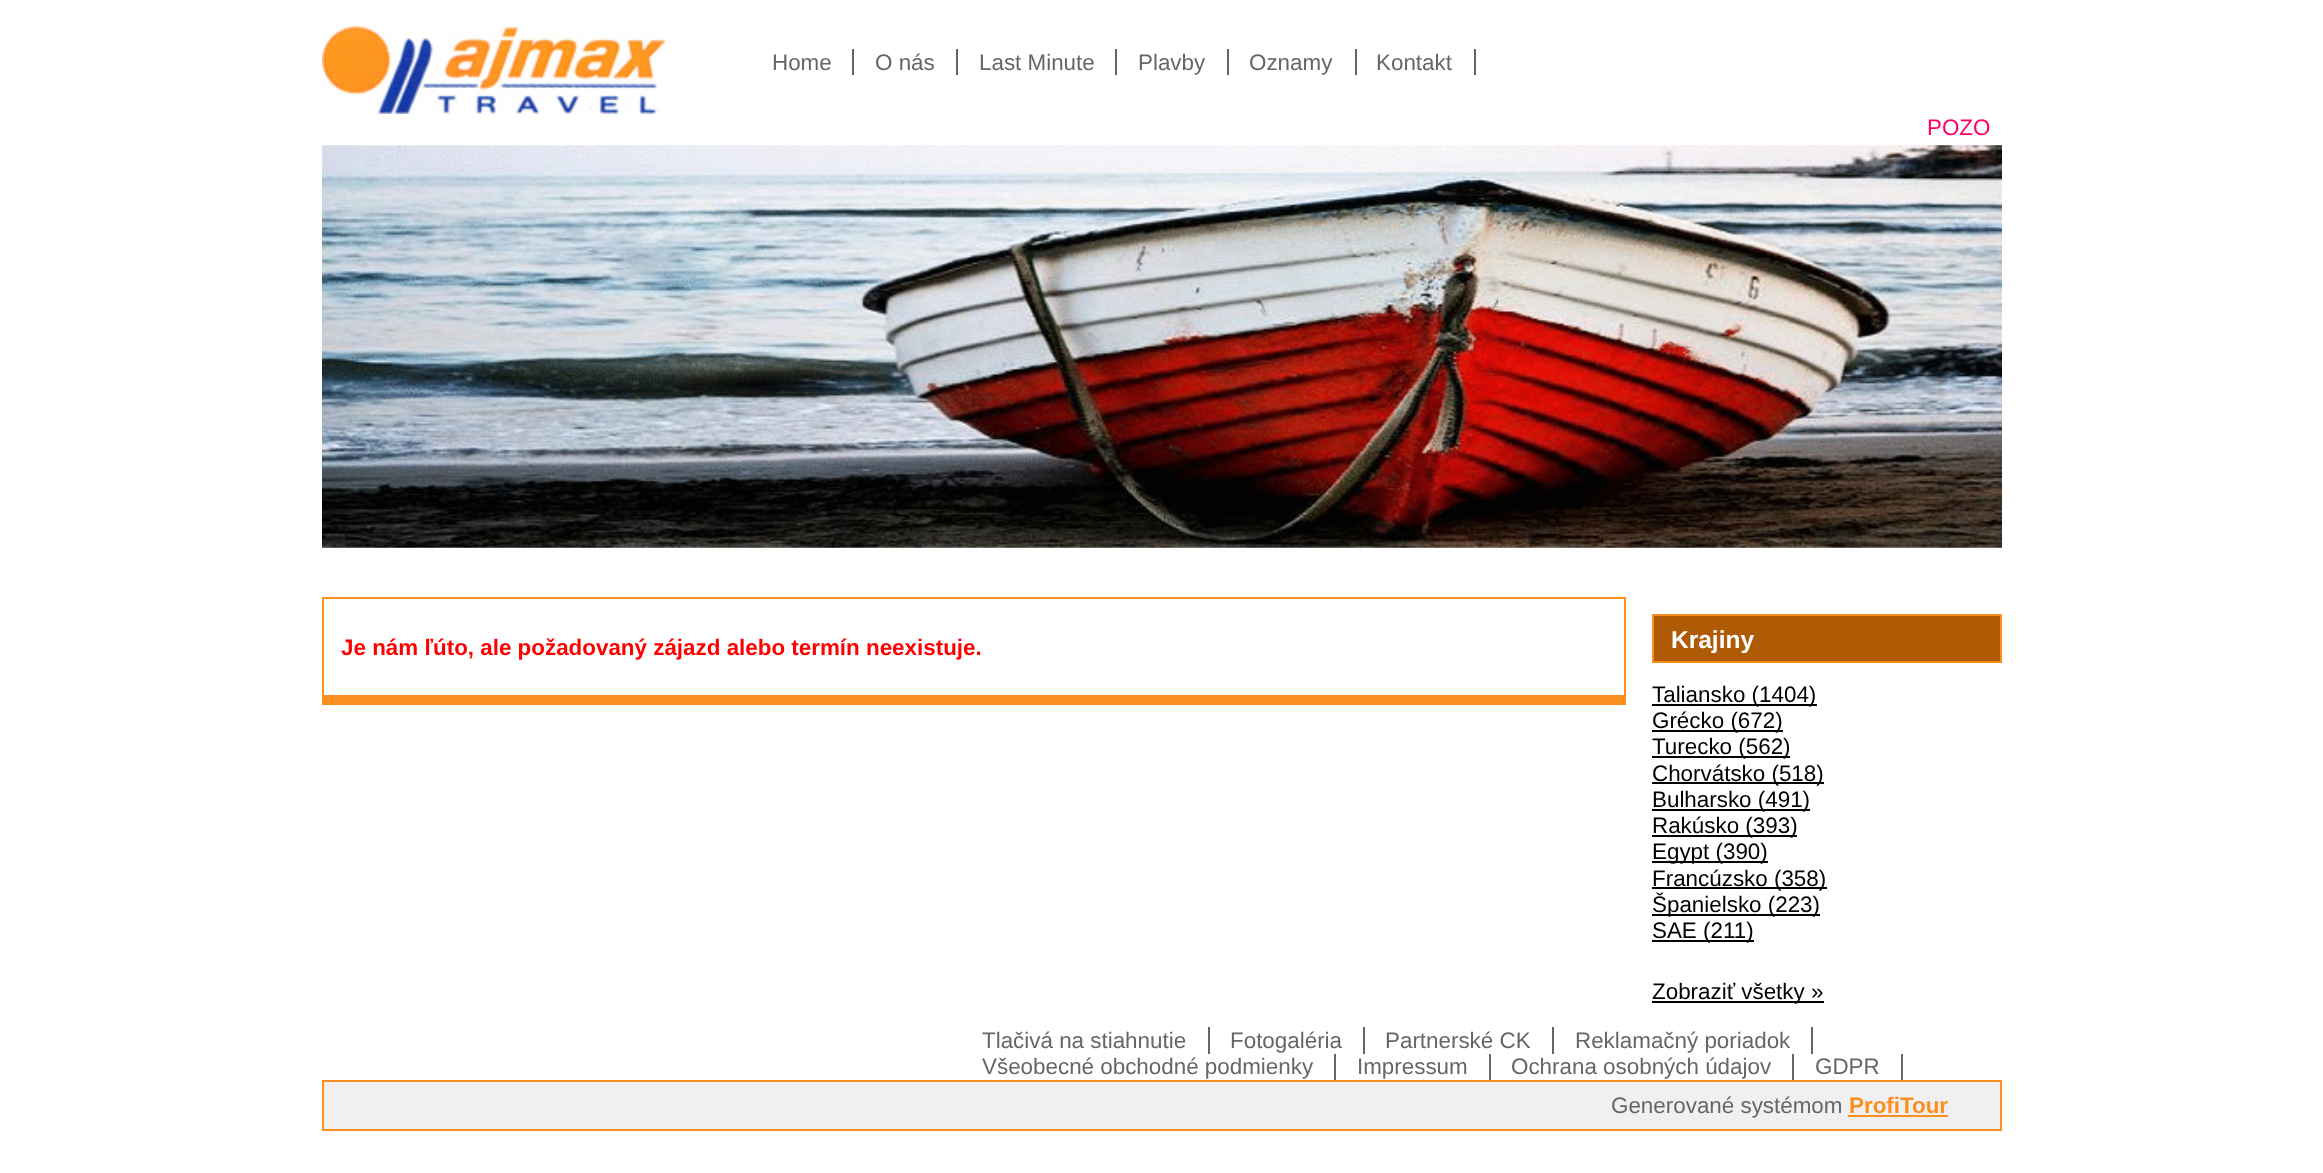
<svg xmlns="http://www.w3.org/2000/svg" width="2323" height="1173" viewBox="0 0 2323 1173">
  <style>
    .t1 { font: 22.4px Liberation Sans; fill: #666; }
    .t2 { font: 22.4px Liberation Sans; fill: #f06; }
    .t3 { font: bold 22.4px Liberation Sans; fill: #f00; }
    .t4 { font: bold 24.5px Liberation Sans; fill: #fff; }
    .t5 { font: 22.4px Liberation Sans; fill: #000; }
    .t6 { font: bold 22.4px Liberation Sans; fill: #fc8e1f; }
  </style>
  <rect width="100%" height="100%" fill="#fff"/>
  <image x="322" y="26" width="343" height="88" href="images/1.png"/>
  <rect x="852" y="49" width="2" height="26" fill="#666"/>
  <text x="772" y="70" class="t1">Home</text>
  <rect x="956" y="49" width="2" height="26" fill="#666"/>
  <text x="875" y="70" class="t1">O nás</text>
  <rect x="1115" y="49" width="2" height="26" fill="#666"/>
  <text x="979" y="70" class="t1">Last Minute</text>
  <rect x="1227" y="49" width="2" height="26" fill="#666"/>
  <text x="1138" y="70" class="t1">Plavby</text>
  <rect x="1355" y="49" width="2" height="26" fill="#666"/>
  <text x="1249" y="70" class="t1">Oznamy</text>
  <rect x="1474" y="49" width="2" height="26" fill="#666"/>
  <text x="1376" y="70" class="t1">Kontakt</text>
  <text x="1927" y="135" class="t2">POZO</text>
  <image x="322" y="145" width="1680" height="403" href="images/2.png"/>
  <rect x="322" y="597" width="1304" height="2" fill="#fc8e1f"/>
  <rect x="1624" y="597" width="2" height="98" fill="#fc8e1f"/>
  <rect x="324" y="695" width="1302" height="10" fill="#fc8e1f"/>
  <rect x="322" y="597" width="2" height="108" fill="#fc8e1f"/>
  <text x="341" y="655" class="t3">Je nám ľúto, ale požadovaný zájazd alebo termín neexistuje.</text>
  <rect x="1653" y="615" width="348" height="47" fill="#af5a04" stroke="#fc8e1f" stroke-width="2"/>
  <text x="1671" y="648" class="t4">Krajiny</text>
  <rect x="1652" y="704" width="165" height="2" fill="#000"/>
  <text x="1652" y="702" class="t5">Taliansko (1404)</text>
  <rect x="1652" y="730" width="131" height="2" fill="#000"/>
  <text x="1652" y="728" class="t5">Grécko (672)</text>
  <rect x="1652" y="756" width="138" height="2" fill="#000"/>
  <text x="1652" y="754" class="t5">Turecko (562)</text>
  <rect x="1652" y="782" width="172" height="2" fill="#000"/>
  <text x="1652" y="781" class="t5">Chorvátsko (518)</text>
  <rect x="1652" y="809" width="158" height="2" fill="#000"/>
  <text x="1652" y="807" class="t5">Bulharsko (491)</text>
  <rect x="1652" y="835" width="145" height="2" fill="#000"/>
  <text x="1652" y="833" class="t5">Rakúsko (393)</text>
  <rect x="1652" y="861" width="116" height="2" fill="#000"/>
  <text x="1652" y="859" class="t5">Egypt (390)</text>
  <rect x="1652" y="887" width="175" height="2" fill="#000"/>
  <text x="1652" y="886" class="t5">Francúzsko (358)</text>
  <rect x="1652" y="914" width="168" height="2" fill="#000"/>
  <text x="1652" y="912" class="t5">Španielsko (223)</text>
  <rect x="1652" y="940" width="102" height="2" fill="#000"/>
  <text x="1652" y="938" class="t5">SAE (211)</text>
  <rect x="1652" y="1001" width="172" height="2" fill="#000"/>
  <text x="1652" y="999" class="t5">Zobraziť všetky »</text>
  <rect x="1208" y="1027" width="2" height="27" fill="#666"/>
  <text x="982" y="1048" class="t1">Tlačivá na stiahnutie</text>
  <rect x="1363" y="1027" width="2" height="27" fill="#666"/>
  <text x="1230" y="1048" class="t1">Fotogaléria</text>
  <rect x="1552" y="1027" width="2" height="27" fill="#666"/>
  <text x="1385" y="1048" class="t1">Partnerské CK</text>
  <rect x="1811" y="1027" width="2" height="27" fill="#666"/>
  <text x="1575" y="1048" class="t1">Reklamačný poriadok</text>
  <rect x="1334" y="1054" width="2" height="26" fill="#666"/>
  <text x="982" y="1074" class="t1">Všeobecné obchodné podmienky</text>
  <rect x="1489" y="1054" width="2" height="26" fill="#666"/>
  <text x="1357" y="1074" class="t1">Impressum</text>
  <rect x="1792" y="1054" width="2" height="26" fill="#666"/>
  <text x="1511" y="1074" class="t1">Ochrana osobných údajov</text>
  <rect x="1901" y="1054" width="2" height="26" fill="#666"/>
  <text x="1815" y="1074" class="t1">GDPR</text>
  <rect x="323" y="1081" width="1678" height="49" fill="#f0f0f0" stroke="#fc8e1f" stroke-width="2"/>
  <text x="1611" y="1113" class="t1">Generované systémom</text>
  <text x="1849" y="1113" class="t6">ProfiTour</text>
  <rect x="1848" y="1115" width="100" height="2" fill="#fc8e1f"/>
</svg>
